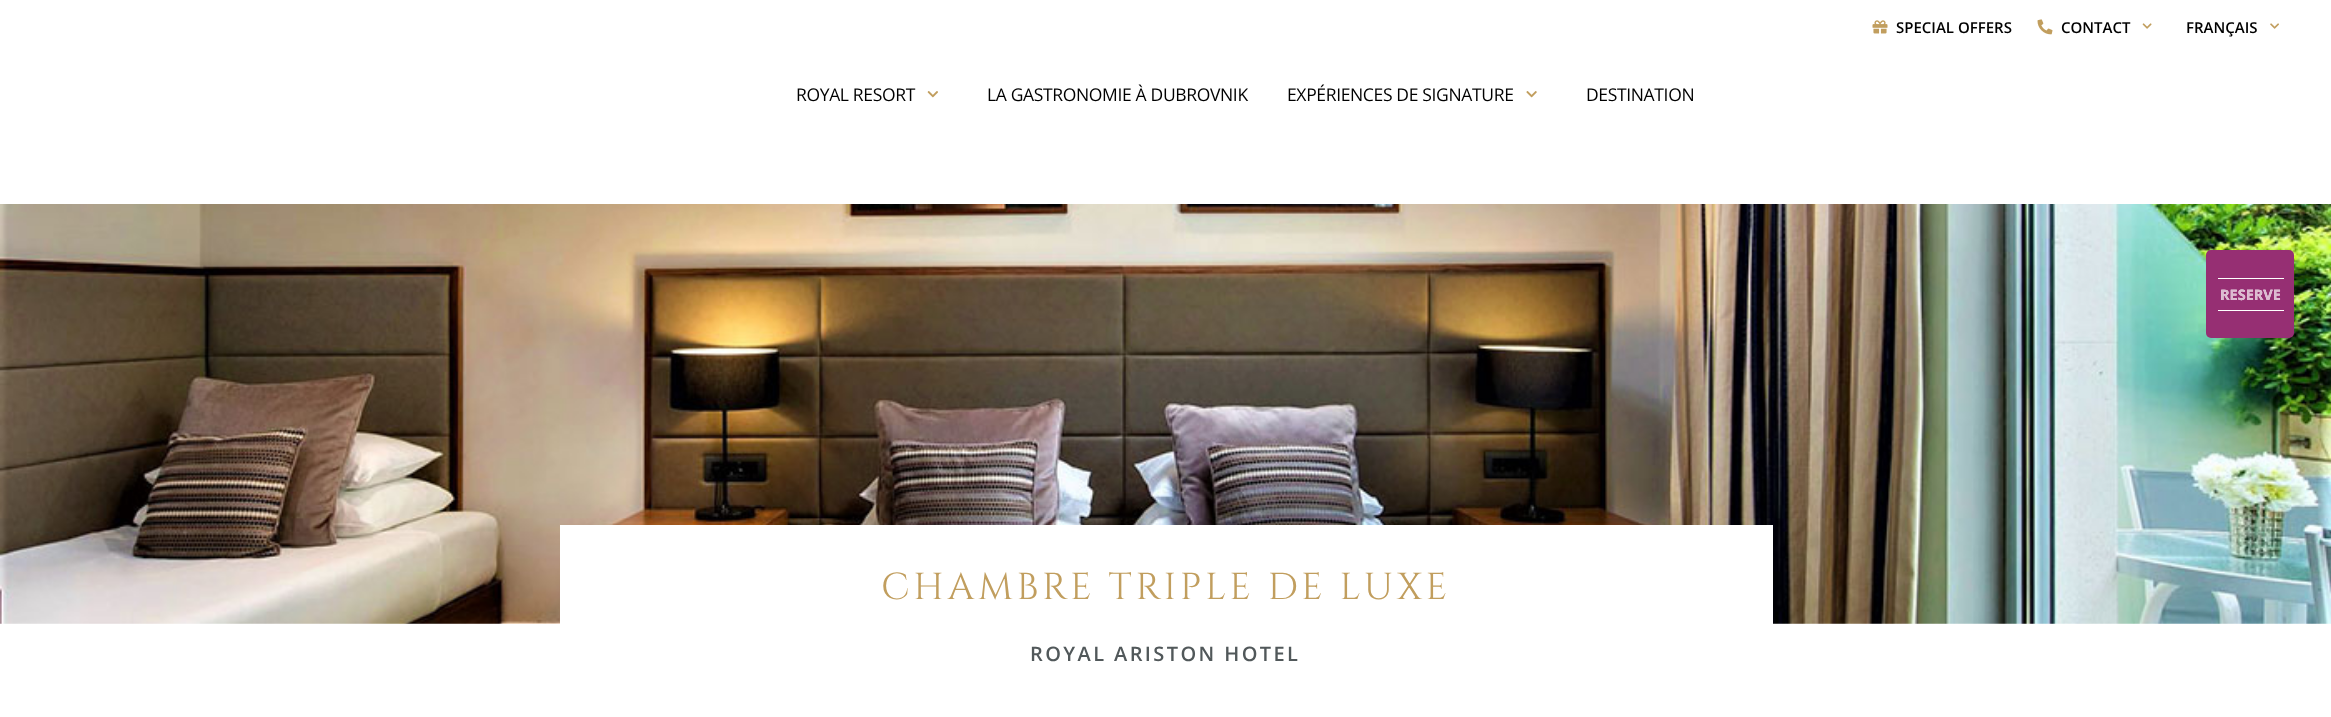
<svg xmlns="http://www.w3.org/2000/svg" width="2331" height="717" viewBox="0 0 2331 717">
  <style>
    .t1 { font: 600 15px Open Sans; fill: #000; }
    .t2 { font: 17.5px Open Sans; letter-spacing: -0.35px; fill: #000; }
    .t3 { font: bold 14.5px Open Sans; fill: #fff; }
    .t4 { font: bold 14.5px Open Sans; fill: #dcbad0; }
    .t5 { font: 37.5px Cinzel; letter-spacing: 3.75px; fill: #c19e5e; }
    .t6 { font: 600 20px Open Sans; letter-spacing: 2.4px; fill: #51585a; }
  </style>
  <rect width="100%" height="100%" fill="#fff"/>
  <image x="1872" y="20" width="16" height="14" href="images/1.png"/>
  <text x="1896" y="33" class="t1">SPECIAL OFFERS</text>
  <image x="2037" y="19" width="16" height="16" href="images/2.png"/>
  <text x="2061" y="33" class="t1">CONTACT</text>
  <image x="2142" y="23" width="10" height="6" href="images/3.png"/>
  <text x="2186" y="33" class="t1">FRANÇAIS</text>
  <image x="2270" y="23" width="9" height="6" href="images/4.png"/>
  <text x="796" y="101" class="t2">ROYAL RESORT</text>
  <image x="927" y="91" width="11" height="7" href="images/5.png"/>
  <text x="987" y="101" class="t2">LA GASTRONOMIE À DUBROVNIK</text>
  <text x="1287" y="101" class="t2">EXPÉRIENCES DE SIGNATURE</text>
  <image x="1526" y="91" width="11" height="7" href="images/6.png"/>
  <text x="1586" y="101" class="t2">DESTINATION</text>
  <image x="0" y="204" width="2331" height="420" href="images/7.png"/>
  <rect x="2206" y="250" width="88" height="88" rx="5" fill="#962f73"/>
  <rect x="2218" y="278" width="66" height="1" fill="#fff"/>
  <rect x="2218" y="310" width="66" height="1" fill="#fff"/>
  <text x="2220" y="300" class="t3">RESERVE</text>
  <text x="2220" y="300" class="t4">RESERVE</text>
  <rect x="560" y="525" width="1213" height="99" fill="#fff"/>
  <text x="881" y="599" class="t5">CHAMBRE TRIPLE DE LUXE</text>
  <text x="1030" y="661" class="t6">ROYAL ARISTON HOTEL</text>
</svg>
